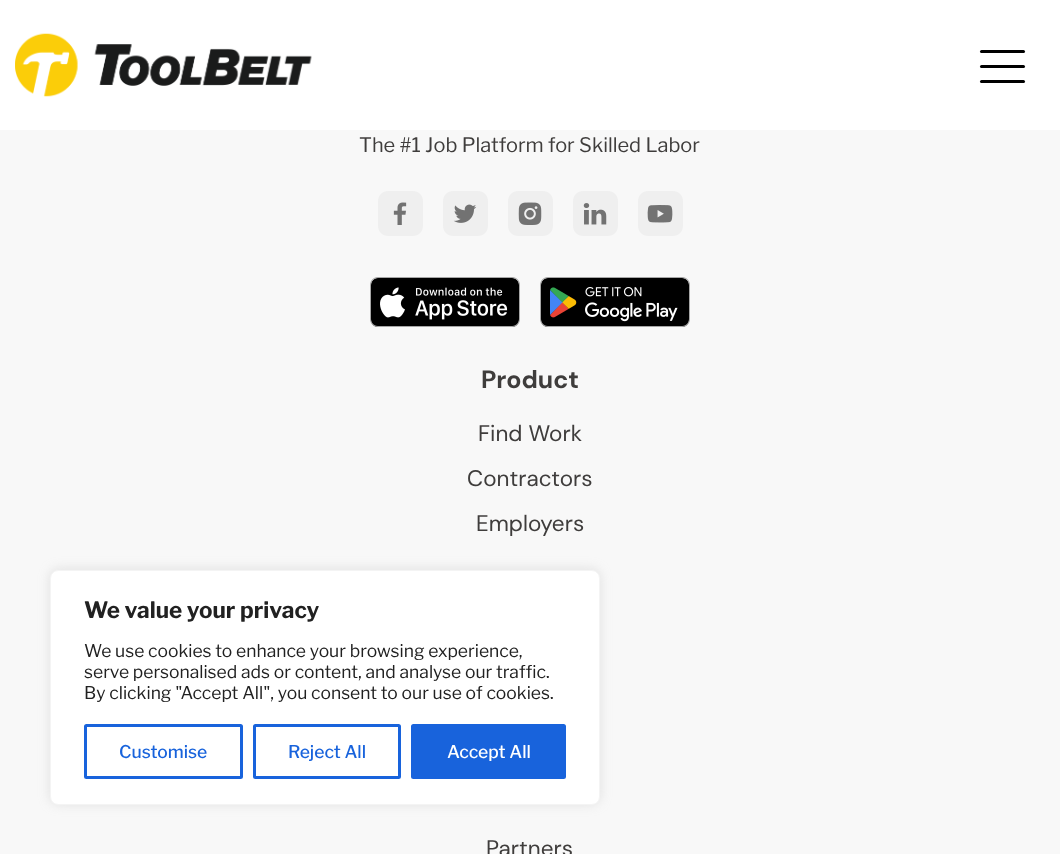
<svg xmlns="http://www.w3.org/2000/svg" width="1060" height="854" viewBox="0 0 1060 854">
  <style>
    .t1 { font: 20px Libre Franklin; fill: #3f3d3c; }
    .t2 { font: bold 25px DM Sans; fill: #3f3d3c; }
    .t3 { font: 22.5px DM Sans; fill: #3f3d3c; }
    .t4 { font: bold 22.5px Libre Franklin; fill: #212121; }
    .t5 { font: 17.5px Libre Franklin; fill: #212121; }
    .t6 { font: 500 17.5px Libre Franklin; fill: #1863dc; }
    .t7 { font: 500 17.5px Libre Franklin; fill: #fff; }
  </style>
  <rect width="100%" height="100%" fill="#f8f8f8"/>
  <rect x="0" y="0" width="1060" height="130" fill="#fff"/>
  <image x="15" y="33" width="297" height="64" href="images/1.png"/>
  <rect x="980" y="50" width="45" height="3" rx="1.5" fill="#000"/>
  <rect x="980" y="65" width="45" height="3" rx="1.5" fill="#000"/>
  <rect x="980" y="80" width="45" height="3" rx="1.5" fill="#000"/>
  <text x="359" y="152" class="t1">The #1 Job Platform for Skilled Labor</text>
  <image x="378" y="191" width="45" height="45" href="images/2.png"/>
  <image x="443" y="191" width="45" height="45" href="images/3.png"/>
  <image x="508" y="191" width="45" height="45" href="images/4.png"/>
  <image x="573" y="191" width="45" height="45" href="images/5.png"/>
  <image x="638" y="191" width="45" height="45" href="images/6.png"/>
  <image x="370" y="277" width="150" height="50" href="images/7.png"/>
  <image x="540" y="277" width="150" height="50" href="images/8.png"/>
  <text x="481" y="388" class="t2">Product</text>
  <text x="478" y="441" class="t3">Find Work</text>
  <text x="467" y="486" class="t3">Contractors</text>
  <text x="476" y="531" class="t3">Employers</text>
  <text x="486" y="856" class="t3">Partners</text>
  <rect x="50" y="569" width="550" height="235" rx="8" fill="#acabab4d" filter="blur(6px)"/>
  <rect x="50.5" y="570.5" width="549" height="234" rx="7.5" fill="#fff" stroke="#f4f4f4"/>
  <text x="84" y="618" class="t4">We value your privacy</text>
  <text x="84" y="657" class="t5">We use cookies to enhance your browsing experience,</text>
  <text x="84" y="678" class="t5">serve personalised ads or content, and analyse our traffic.</text>
  <text x="84" y="699" class="t5">By clicking "Accept All", you consent to our use of cookies.</text>
  <rect x="85.5" y="725.5" width="156" height="52" rx="1" fill="none" stroke="#1863dc" stroke-width="3"/>
  <text x="119" y="758" class="t6">Customise</text>
  <rect x="254.5" y="725.5" width="145" height="52" rx="1" fill="none" stroke="#1863dc" stroke-width="3"/>
  <text x="288" y="758" class="t6">Reject All</text>
  <rect x="412.5" y="725.5" width="152" height="52" rx="1" fill="#1863dc" stroke="#1863dc" stroke-width="3"/>
  <text x="447" y="758" class="t7">Accept All</text>
</svg>
